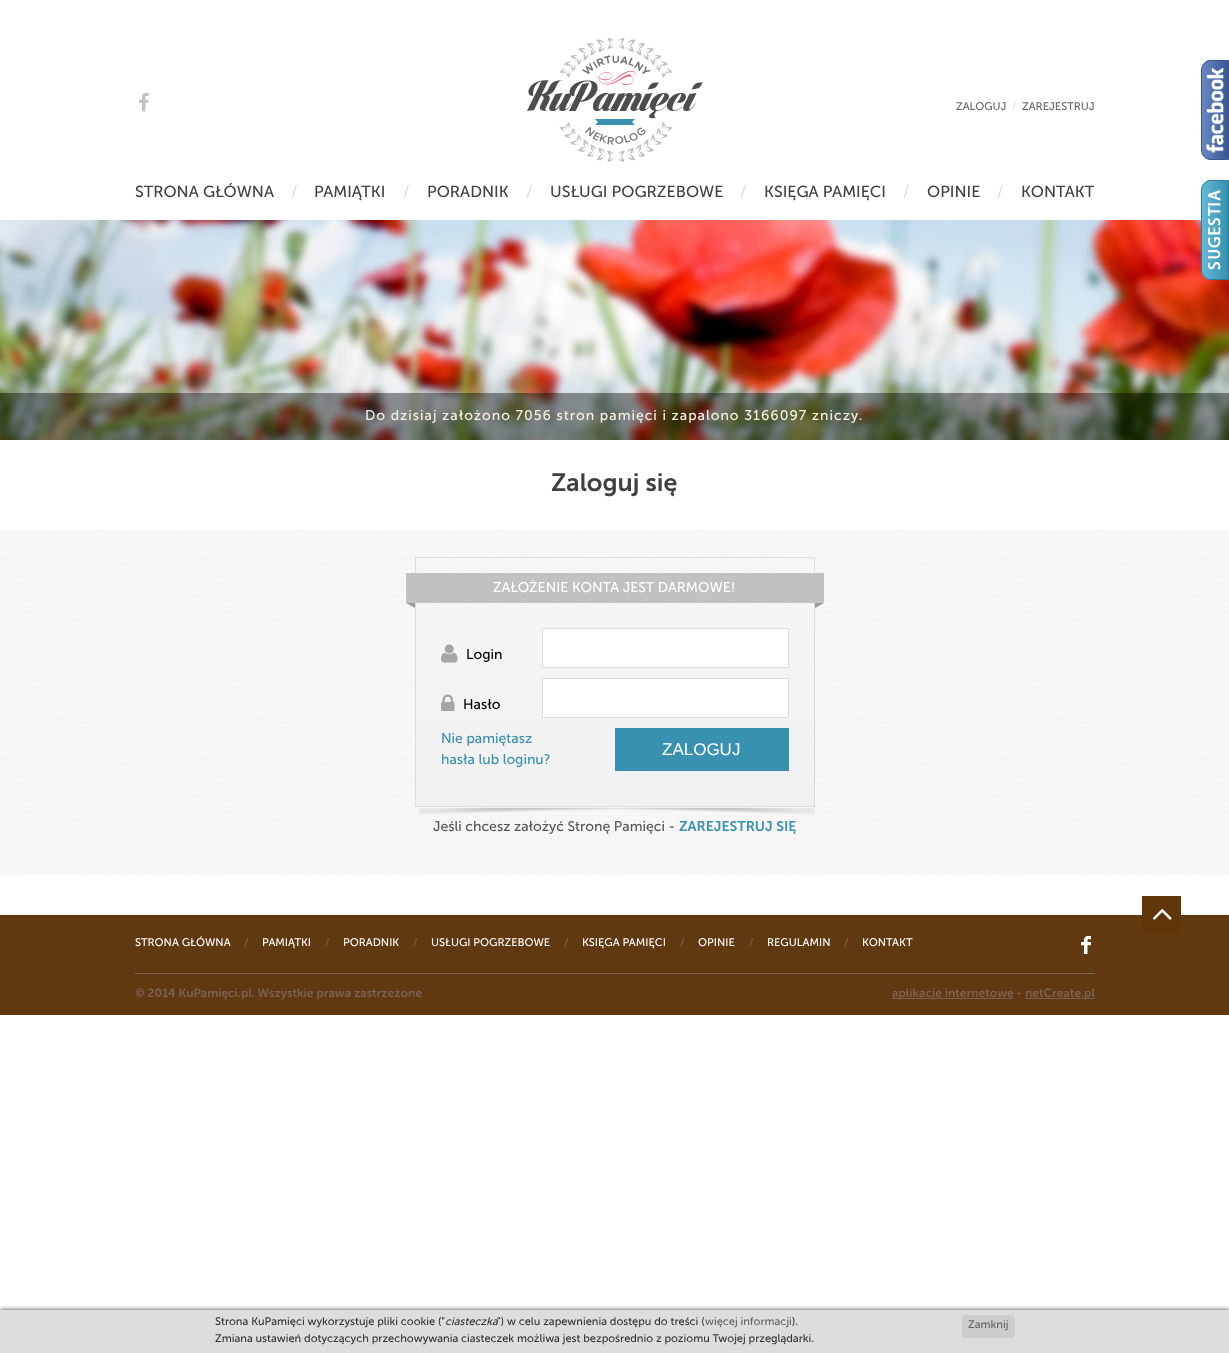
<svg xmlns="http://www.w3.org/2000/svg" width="1229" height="1353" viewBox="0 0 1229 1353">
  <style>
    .t1 { font: 11px Museo Sans; fill: #646464; }
    .t2 { font: 11px Museo Sans; fill: #ddd; }
    .t3 { font: 16px Museo Sans; fill: #404040; }
    .t4 { font: 16px Museo Sans; fill: #ddd; }
    .t5 { font: 14px Museo Sans; letter-spacing: 1px; fill: #f7f0e0; }
    .t6 { font: 25px 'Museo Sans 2'; fill: #404040; }
    .t7 { font: 14px Museo Sans; fill: #fff; }
    .t8 { font: 14px Museo Sans; fill: #000; }
    .t9 { font: 14px Museo Sans; fill: #3891b0; }
    .t10 { font: 17px Liberation Sans; fill: #fff; }
    .t11 { font: 14px Museo Sans; fill: #565656; }
    .t12 { font: 14px 'Museo Sans 2'; fill: #3891b0; }
    .t13 { font: 11px Museo Sans; fill: #fff; }
    .t14 { font: 11px Museo Sans; fill: #7b6252; }
    .t15 { font: 12px 'Museo Sans 2'; fill: #7b6252; }
    .t16 { font: 11px Museo Sans; fill: #333; }
    .t17 { font: italic 11px Museo Sans; fill: #333; }
  </style>
  <defs>
    <clipPath id="clip1"><path d="M1211 60H1229V160H1211C1205.5 160 1201 155.5 1201 150V70C1201 64.5 1205.5 60 1211 60Z"/></clipPath>
    <linearGradient id="g1" gradientUnits="userSpaceOnUse" x1="1202" y1="110" x2="1228" y2="110"><stop offset="0" stop-color="#6a87c5"/><stop offset="1" stop-color="#3a5795"/></linearGradient>
    <clipPath id="clip2"><path d="M1211 180H1229V280H1211C1205.5 280 1201 275.5 1201 270V190C1201 184.5 1205.5 180 1211 180Z"/></clipPath>
    <linearGradient id="g2" gradientUnits="userSpaceOnUse" x1="1202" y1="230" x2="1228" y2="230"><stop offset="0" stop-color="#63bad8"/><stop offset="1" stop-color="#3891b0"/></linearGradient>
  </defs>
  <rect width="100%" height="100%" fill="#fff"/>
  <image x="139" y="92" width="10" height="20" href="images/1.png"/>
  <image x="527" y="38" width="176" height="124" href="images/2.png"/>
  <text x="956" y="110" class="t1">ZALOGUJ</text>
  <text x="1012" y="110" class="t2">/</text>
  <text x="1022" y="110" class="t1">ZAREJESTRUJ</text>
  <text x="135" y="197" class="t3">STRONA GŁÓWNA</text>
  <text x="291" y="197" class="t4">/</text>
  <text x="314" y="197" class="t3">PAMIĄTKI</text>
  <text x="403" y="197" class="t4">/</text>
  <text x="427" y="197" class="t3">PORADNIK</text>
  <text x="526" y="197" class="t4">/</text>
  <text x="550" y="197" class="t3">USŁUGI POGRZEBOWE</text>
  <text x="740" y="197" class="t4">/</text>
  <text x="764" y="197" class="t3">KSIĘGA PAMIĘCI</text>
  <text x="903" y="197" class="t4">/</text>
  <text x="927" y="197" class="t3">OPINIE</text>
  <text x="997" y="197" class="t4">/</text>
  <text x="1021" y="197" class="t3">KONTAKT</text>
  <image x="0" y="220" width="1229" height="220" href="images/3.png"/>
  <rect x="0" y="393" width="1229" height="47" fill="#00000066"/>
  <text x="365" y="420" class="t5">Do dzisiaj założono 7056 stron pamięci i zapalono 3166097 zniczy.</text>
  <text x="551" y="491" class="t6">Zaloguj się</text>
  <image x="0" y="530" width="1229" height="345" href="images/4.png"/>
  <image x="416" y="558" width="398" height="248" href="images/5.png"/>
  <rect x="415.5" y="557.5" width="399" height="249" fill="none" stroke="#ddd"/>
  <image x="406" y="573" width="418" height="30" href="images/6.png"/>
  <text x="493" y="592" class="t7">ZAŁOŻENIE KONTA JEST DARMOWE!</text>
  <image x="406" y="603" width="9" height="5" href="images/7.png"/>
  <image x="815" y="603" width="9" height="5" href="images/8.png"/>
  <image x="441" y="644" width="17" height="19" href="images/9.png"/>
  <text x="466" y="659" class="t8">Login</text>
  <rect x="542.5" y="628.5" width="246" height="39" fill="#fff" stroke="#ddd"/>
  <image x="441" y="694" width="14" height="17" href="images/10.png"/>
  <text x="463" y="709" class="t8">Hasło</text>
  <rect x="542.5" y="678.5" width="246" height="39" fill="#fff" stroke="#ddd"/>
  <text x="441" y="743" class="t9">Nie pamiętasz</text>
  <text x="441" y="764" class="t9">hasła lub loginu?</text>
  <rect x="615" y="728" width="174" height="43" fill="#3891b0"/>
  <text x="662" y="755" class="t10">ZALOGUJ</text>
  <image x="417" y="807" width="398" height="8" href="images/11.png"/>
  <text x="433" y="831" class="t11">Jeśli chcesz założyć Stronę Pamięci -</text>
  <text x="679" y="831" class="t12">ZAREJESTRUJ SIĘ</text>
  <rect x="0" y="915" width="1229" height="100" fill="#613911"/>
  <rect x="1142" y="896" width="39" height="38" fill="#603509"/>
  <image x="1153" y="909" width="19" height="11" href="images/12.png"/>
  <text x="135" y="946" class="t13">STRONA GŁÓWNA</text>
  <text x="244" y="946" class="t14">/</text>
  <text x="262" y="946" class="t13">PAMIĄTKI</text>
  <text x="325" y="946" class="t14">/</text>
  <text x="343" y="946" class="t13">PORADNIK</text>
  <text x="413" y="946" class="t14">/</text>
  <text x="431" y="946" class="t13">USŁUGI POGRZEBOWE</text>
  <text x="564" y="946" class="t14">/</text>
  <text x="582" y="946" class="t13">KSIĘGA PAMIĘCI</text>
  <text x="680" y="946" class="t14">/</text>
  <text x="698" y="946" class="t13">OPINIE</text>
  <text x="749" y="946" class="t14">/</text>
  <text x="767" y="946" class="t13">REGULAMIN</text>
  <text x="844" y="946" class="t14">/</text>
  <text x="862" y="946" class="t13">KONTAKT</text>
  <image x="1081" y="936" width="10" height="18" href="images/13.png"/>
  <rect x="135" y="973" width="960" height="1" fill="#7b6252"/>
  <text x="135" y="997" class="t15">© 2014 KuPamięci.pl. Wszystkie prawa zastrzeżone</text>
  <rect x="892" y="998" width="121" height="1" fill="#7b6252"/>
  <text x="892" y="997" class="t15">aplikacje internetowe -</text>
  <rect x="1025" y="998" width="70" height="1" fill="#7b6252"/>
  <text x="1025" y="997" class="t15">netCreate.pl</text>
  <g clip-path="url(#clip1)">
    <rect x="1202" y="60" width="26" height="100" fill="url(#g1)"/>
  </g>
  <path d="M1211 60.5H1228.5V159.5H1211C1206 159.5 1201.5 155 1201.5 150V70C1201.5 65 1206 60.5 1211 60.5Z" fill="none" stroke="#3a5795"/>
  <image x="1206" y="67" width="18" height="86" href="images/14.png"/>
  <g clip-path="url(#clip2)">
    <rect x="1202" y="180" width="26" height="100" fill="url(#g2)"/>
  </g>
  <path d="M1211 180.5H1228.5V279.5H1211C1206 279.5 1201.5 275 1201.5 270V190C1201.5 185 1206 180.5 1211 180.5Z" fill="none" stroke="#2881a0"/>
  <image x="1208" y="190" width="13" height="80" href="images/15.png"/>
  <rect x="0" y="1310" width="1229" height="43" fill="#333" filter="blur(2.5px)"/>
  <rect x="0" y="1310" width="1229" height="43" fill="#ddd"/>
  <text x="215" y="1325" class="t16">Strona KuPamięci wykorzystuje pliki cookie ("</text>
  <text x="445" y="1325" class="t17">ciasteczka</text>
  <text x="497" y="1325" class="t16">") w celu zapewnienia dostępu do treści (</text>
  <text x="705" y="1325" class="t1">więcej informacji</text>
  <text x="792" y="1325" class="t16">).</text>
  <text x="215" y="1342" class="t16">Zmiana ustawień dotyczących przechowywania ciasteczek możliwa jest bezpośrednio z poziomu Twojej przeglądarki.</text>
  <rect x="962" y="1315" width="53" height="23" rx="4" fill="#ccc"/>
  <text x="968" y="1328" class="t1">Zamknij</text>
</svg>
